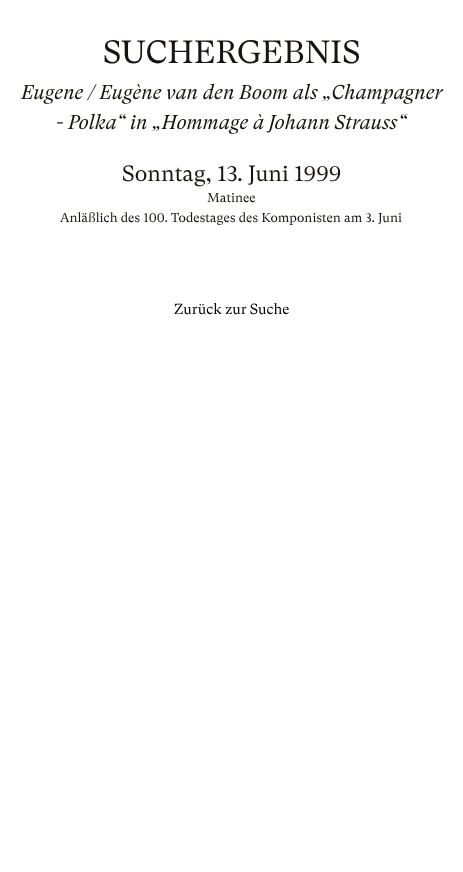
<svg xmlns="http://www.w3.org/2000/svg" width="463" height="872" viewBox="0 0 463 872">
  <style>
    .t1 { font: 32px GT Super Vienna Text; fill: #19140e; }
    .t2 { font: italic 20px GT Super Vienna Text; fill: #19140e; }
    .t3 { font: 22px GT Super Vienna Text; fill: #19140e; }
    .t4 { font: 12.95px GT Super Vienna Text; fill: #19140e; }
    .t5 { font: 14.5px GT Super Vienna Text; fill: #000; }
  </style>
  <rect width="100%" height="100%" fill="#fff"/>
  <text x="103" y="63" class="t1">SUCHERGEBNIS</text>
  <text x="21" y="99" class="t2">Eugene / Eugène van den Boom als „Champagner</text>
  <text x="56" y="129" class="t2">- Polka“ in „Hommage à Johann Strauss“</text>
  <text x="122" y="181" class="t3">Sonntag, 13. Juni 1999</text>
  <text x="207" y="202" class="t4">Matinee</text>
  <text x="60" y="222" class="t4">Anläßlich des 100. Todestages des Komponisten am 3. Juni</text>
  <text x="174" y="314" class="t5">Zurück zur Suche</text>
</svg>
